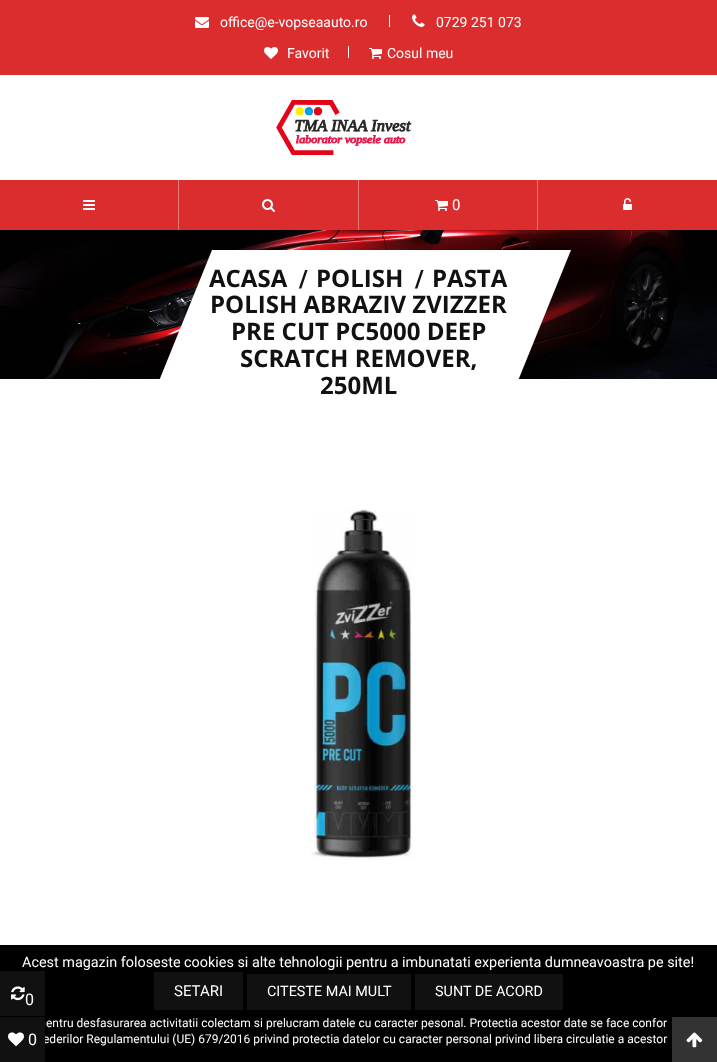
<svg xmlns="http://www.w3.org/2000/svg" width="717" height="1062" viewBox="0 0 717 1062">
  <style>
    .t1 { font: 14px Roboto; fill: #fff; }
    .t2 { font: 15px Roboto; fill: #fff; }
    .t3 { font: bold 24px Open Sans; fill: #111; }
    .t4 { font: bold 24px Roboto; fill: #111; }
    .t5 { font: 14.4px Roboto; fill: #fff; }
    .t6 { font: 12px Roboto; fill: #fff; }
    .t7 { font: 16px Roboto; fill: #fff; }
  </style>
  <rect width="100%" height="100%" fill="#fff"/>
  <rect x="0" y="0" width="717" height="230" fill="#db2d2e"/>
  <image x="195" y="17" width="14" height="11" href="images/1.png"/>
  <text x="220" y="27" class="t1">office@e-vopseaauto.ro</text>
  <rect x="389" y="15" width="1" height="12" fill="#fff"/>
  <image x="412" y="14" width="13" height="13" href="images/2.png"/>
  <text x="436" y="27" class="t1">0729 251 073</text>
  <image x="264" y="47" width="14" height="12" href="images/3.png"/>
  <text x="287" y="58" class="t1">Favorit</text>
  <rect x="348" y="46" width="1" height="12" fill="#fff"/>
  <image x="369" y="48" width="13" height="11" href="images/4.png"/>
  <text x="387" y="58" class="t1">Cosul meu</text>
  <rect x="0" y="75" width="717" height="105" fill="#fff"/>
  <image x="276" y="100" width="136" height="55" href="images/5.png"/>
  <rect x="178" y="180" width="1" height="50" fill="#e1797a"/>
  <image x="83" y="200" width="12" height="10" href="images/6.png"/>
  <rect x="358" y="180" width="1" height="50" fill="#e1797a"/>
  <image x="262" y="199" width="13" height="13" href="images/7.png"/>
  <rect x="537" y="180" width="1" height="50" fill="#e1797a"/>
  <image x="435" y="200" width="13" height="11" href="images/4.png"/>
  <text x="452" y="210" class="t2">0</text>
  <image x="623" y="198" width="9" height="12" href="images/8.png"/>
  <image x="0" y="230" width="717" height="149" href="images/9.png"/>
  <path d="M212 250H571L505 413H146Z" fill="#fff"/>
  <text x="209" y="287" class="t3">ACASA</text>
  <text x="299" y="287" class="t4">/</text>
  <text x="316" y="287" class="t3">POLISH</text>
  <text x="415" y="287" class="t4">/</text>
  <text x="432" y="287" class="t3">PASTA</text>
  <text x="210" y="313" class="t3">POLISH ABRAZIV ZVIZZER</text>
  <text x="231" y="340" class="t3">PRE CUT PC5000 DEEP</text>
  <text x="240" y="367" class="t3">SCRATCH REMOVER,</text>
  <text x="320" y="394" class="t3">250ML</text>
  <image x="311" y="509" width="106" height="351" href="images/10.png"/>
  <rect x="0" y="945" width="717" height="117" fill="#000"/>
  <text x="22" y="967" class="t5">Acest magazin foloseste cookies si alte tehnologii pentru a imbunatati experienta dumneavoastra pe site!</text>
  <rect x="154" y="972" width="89" height="38" fill="#111"/>
  <text x="174" y="996" class="t2">SETARI</text>
  <rect x="247" y="974" width="164" height="36" fill="#111"/>
  <text x="267" y="996" class="t5">CITESTE MAI MULT</text>
  <rect x="415" y="974" width="148" height="36" fill="#111"/>
  <text x="435" y="996" class="t5">SUNT DE ACORD</text>
  <text x="46" y="1027" class="t6">entru desfasurarea activitatii colectam si prelucram datele cu caracter pesonal. Protectia acestor date se face confor</text>
  <text x="43" y="1043" class="t6">ederilor Regulamentului (UE) 679/2016 privind protectia datelor cu caracter personal privind libera circulatie a acestor</text>
  <rect x="0" y="971" width="45" height="45" fill="#111"/>
  <image x="11" y="986" width="14" height="15" href="images/11.png"/>
  <text x="25" y="1005" class="t7">0</text>
  <rect x="0" y="1017" width="45" height="45" fill="#111"/>
  <image x="8" y="1032" width="16" height="15" href="images/12.png"/>
  <text x="28" y="1045" class="t7">0</text>
  <rect x="672" y="1017" width="45" height="45" fill="#333"/>
  <image x="686" y="1032" width="17" height="16" href="images/13.png"/>
</svg>
